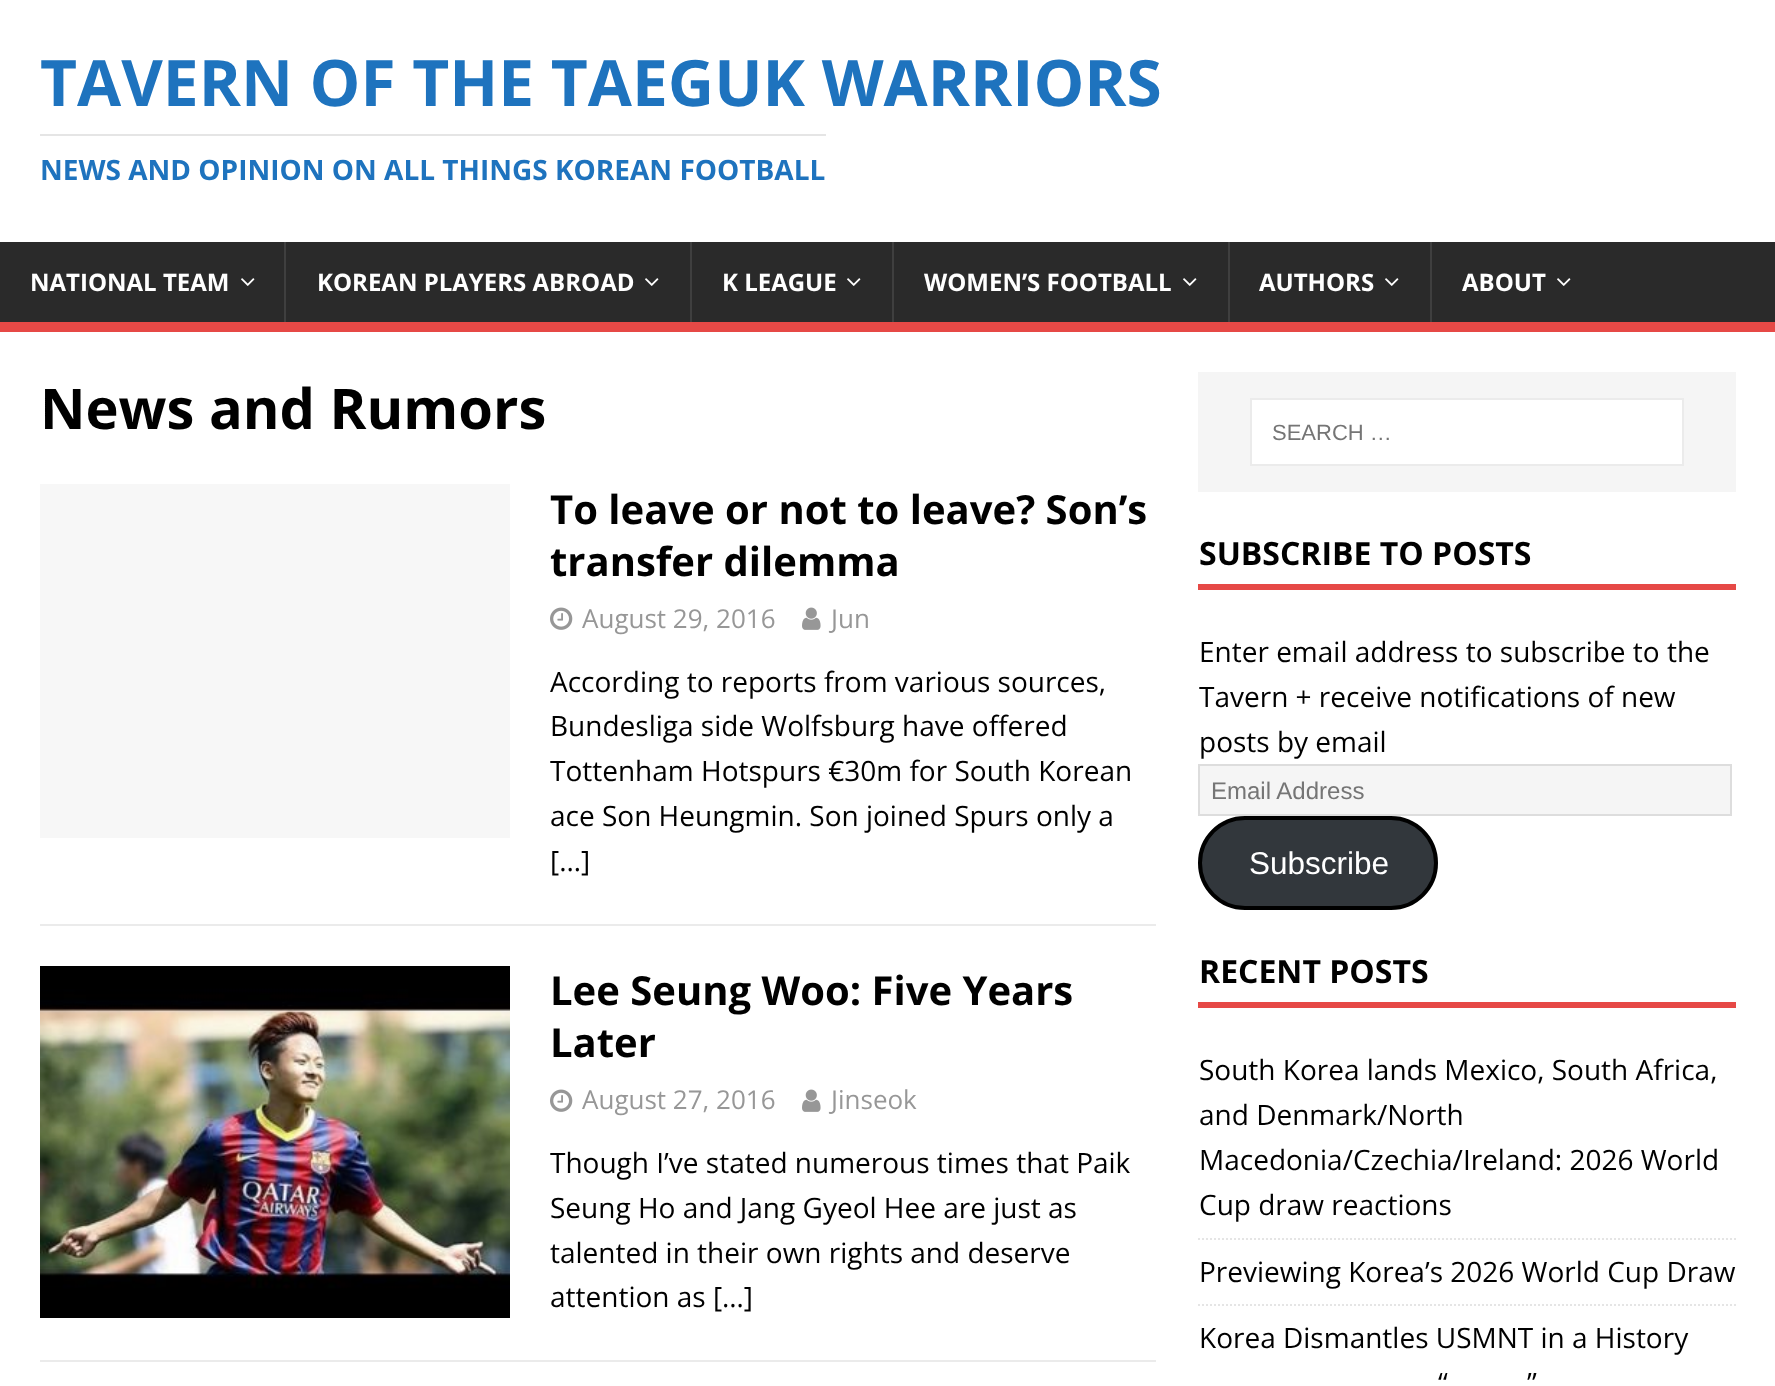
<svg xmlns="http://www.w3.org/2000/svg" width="1775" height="1386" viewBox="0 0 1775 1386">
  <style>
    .t1 { font: bold 64px Open Sans; fill: #1e73be; }
    .t2 { font: bold 28px Open Sans; fill: #1e73be; }
    .t3 { font: bold 24px Open Sans; fill: #fff; }
    .t4 { font: bold 56px Open Sans; fill: #000; }
    .t5 { font: bold 40px Open Sans; fill: #000; }
    .t6 { font: 26px Open Sans; fill: #979797; }
    .t7 { font: 28px Open Sans; fill: #000; }
    .t8 { font: 22px Liberation Sans; fill: #757575; }
    .t9 { font: bold 32px Open Sans; fill: #000; }
    .t10 { font: 24px Liberation Sans; fill: #757575; }
    .t11 { font: 31.5px Liberation Sans; fill: #fff; }
  </style>
  <rect width="100%" height="100%" fill="#fff"/>
  <text x="40" y="106" class="t1">TAVERN OF THE TAEGUK WARRIORS</text>
  <rect x="40" y="134" width="786" height="2" fill="#e5e5e5"/>
  <text x="40" y="180" class="t2">NEWS AND OPINION ON ALL THINGS KOREAN FOOTBALL</text>
  <rect x="0" y="242" width="1775" height="80" fill="#2a2a2a"/>
  <rect x="0" y="322" width="1775" height="10" fill="#e64946"/>
  <text x="30" y="291" class="t3">NATIONAL TEAM</text>
  <image x="241" y="278" width="14" height="8" href="images/1.png"/>
  <rect x="284" y="242" width="2" height="80" fill="#3f3f3f"/>
  <text x="317" y="291" class="t3">KOREAN PLAYERS ABROAD</text>
  <image x="645" y="278" width="14" height="8" href="images/1.png"/>
  <rect x="690" y="242" width="2" height="80" fill="#3f3f3f"/>
  <text x="722" y="291" class="t3">K LEAGUE</text>
  <image x="847" y="278" width="14" height="8" href="images/1.png"/>
  <rect x="892" y="242" width="2" height="80" fill="#3f3f3f"/>
  <text x="924" y="291" class="t3">WOMEN’S FOOTBALL</text>
  <image x="1183" y="278" width="14" height="8" href="images/1.png"/>
  <rect x="1228" y="242" width="2" height="80" fill="#3f3f3f"/>
  <text x="1259" y="291" class="t3">AUTHORS</text>
  <image x="1385" y="278" width="14" height="8" href="images/1.png"/>
  <rect x="1430" y="242" width="2" height="80" fill="#3f3f3f"/>
  <text x="1462" y="291" class="t3">ABOUT</text>
  <image x="1557" y="278" width="14" height="8" href="images/1.png"/>
  <text x="40" y="429" class="t4">News and Rumors</text>
  <rect x="40" y="924" width="1116" height="2" fill="#ebebeb"/>
  <rect x="40" y="484" width="470" height="354" fill="#f7f7f7"/>
  <text x="550" y="524" class="t5">To leave or not to leave? Son’s</text>
  <text x="550" y="576" class="t5">transfer dilemma</text>
  <image x="550" y="607" width="23" height="23" href="images/2.png"/>
  <text x="582" y="628" class="t6">August 29, 2016</text>
  <image x="802" y="607" width="19" height="23" href="images/3.png"/>
  <text x="831" y="628" class="t6">Jun</text>
  <text x="550" y="692" class="t7">According to reports from various sources,</text>
  <text x="550" y="736" class="t7">Bundesliga side Wolfsburg have offered</text>
  <text x="550" y="781" class="t7">Tottenham Hotspurs €30m for South Korean</text>
  <text x="550" y="826" class="t7">ace Son Heungmin. Son joined Spurs only a</text>
  <text x="550" y="871" class="t7">[…]</text>
  <rect x="40" y="1360" width="1116" height="2" fill="#ebebeb"/>
  <image x="40" y="966" width="470" height="352" href="images/4.png"/>
  <text x="550" y="1005" class="t5">Lee Seung Woo: Five Years</text>
  <text x="550" y="1057" class="t5">Later</text>
  <image x="550" y="1089" width="23" height="23" href="images/2.png"/>
  <text x="582" y="1109" class="t6">August 27, 2016</text>
  <image x="802" y="1089" width="19" height="23" href="images/3.png"/>
  <text x="831" y="1109" class="t6">Jinseok</text>
  <text x="550" y="1173" class="t7">Though I’ve stated numerous times that Paik</text>
  <text x="550" y="1218" class="t7">Seung Ho and Jang Gyeol Hee are just as</text>
  <text x="550" y="1263" class="t7">talented in their own rights and deserve</text>
  <text x="550" y="1307" class="t7">attention as […]</text>
  <rect x="1198" y="372" width="538" height="120" fill="#f5f5f5"/>
  <rect x="1251" y="399" width="432" height="66" fill="#fff" stroke="#ebebeb" stroke-width="2"/>
  <text x="1272" y="440" class="t8">SEARCH …</text>
  <rect x="1198" y="584" width="538" height="6" fill="#e64946"/>
  <text x="1199" y="565" class="t9">SUBSCRIBE TO POSTS</text>
  <text x="1199" y="662" class="t7">Enter email address to subscribe to the</text>
  <text x="1199" y="707" class="t7">Tavern + receive notifications of new</text>
  <text x="1199" y="752" class="t7">posts by email</text>
  <rect x="1199" y="765" width="532" height="50" fill="#f5f5f5" stroke="#ddd" stroke-width="2"/>
  <text x="1211" y="799" class="t10">Email Address</text>
  <rect x="1200" y="818" width="236" height="90" rx="45" fill="#32373c" stroke="#000" stroke-width="4"/>
  <text x="1249" y="874" class="t11">Subscribe</text>
  <rect x="1198" y="1002" width="538" height="6" fill="#e64946"/>
  <text x="1199" y="983" class="t9">RECENT POSTS</text>
  <path d="M1198 1239H1736" fill="none" stroke="#e5e5e5" stroke-width="2" stroke-dasharray="2 2"/>
  <text x="1199" y="1080" class="t7">South Korea lands Mexico, South Africa,</text>
  <text x="1199" y="1125" class="t7">and Denmark/North</text>
  <text x="1199" y="1170" class="t7">Macedonia/Czechia/Ireland: 2026 World</text>
  <text x="1199" y="1215" class="t7">Cup draw reactions</text>
  <path d="M1198 1305H1736" fill="none" stroke="#e5e5e5" stroke-width="2" stroke-dasharray="2 2"/>
  <text x="1199" y="1282" class="t7">Previewing Korea’s 2026 World Cup Draw</text>
  <text x="1199" y="1348" class="t7">Korea Dismantles USMNT in a History</text>
  <text x="1438" y="1393" class="t7">“</text>
  <text x="1527" y="1393" class="t7">”</text>
</svg>
